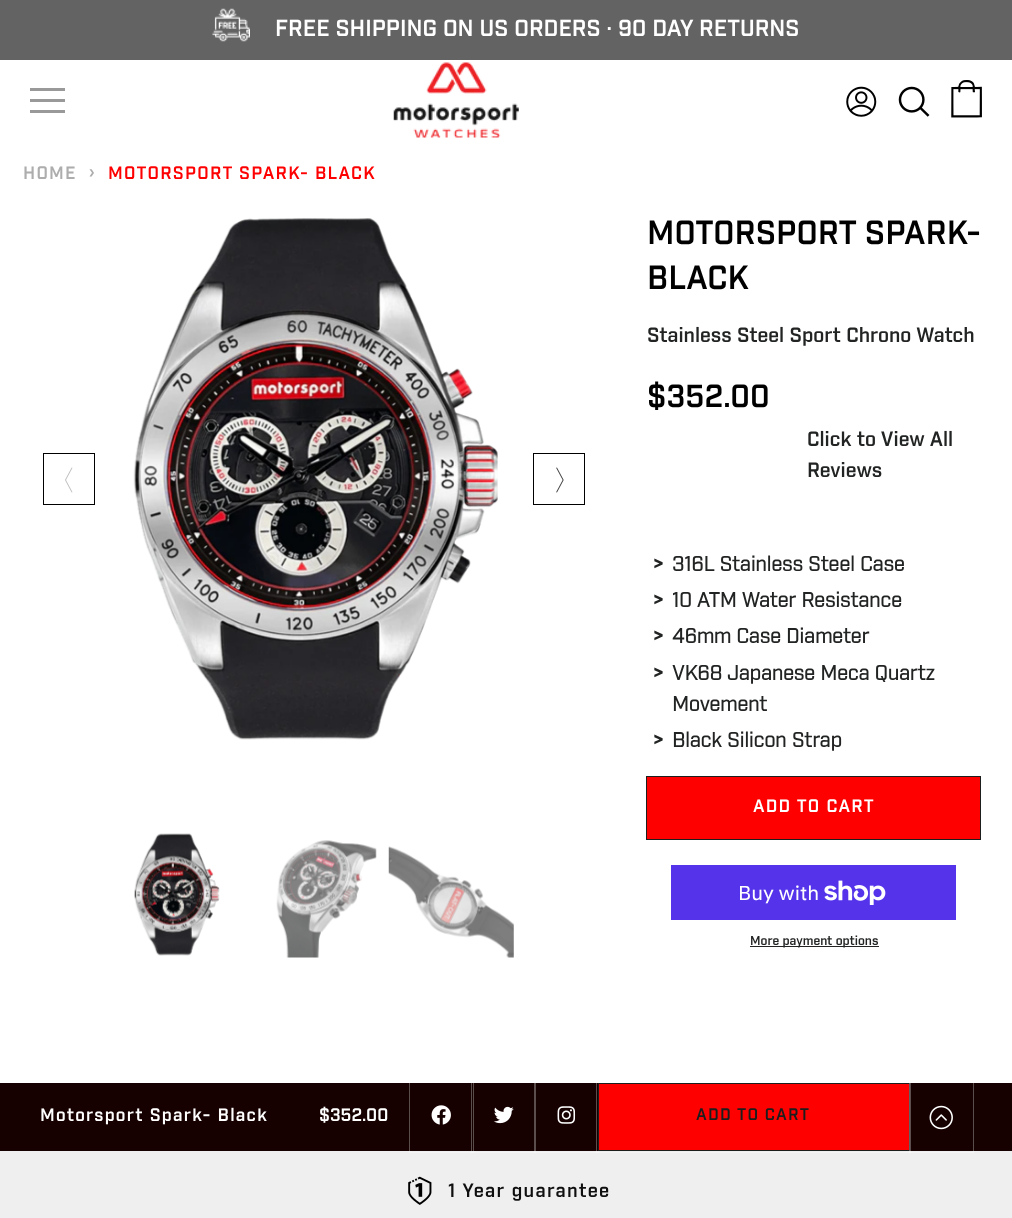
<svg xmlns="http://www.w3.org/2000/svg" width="1012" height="1218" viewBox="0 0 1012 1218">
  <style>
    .t1 { font: 22.5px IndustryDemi; fill: #fff; }
    .t2 { font: 17.5px IndustryDemi; letter-spacing: 1.25px; fill: #adadad; }
    .t3 { font: 17.5px IndustryDemi; letter-spacing: 1.25px; fill: #f00; }
    .t4 { font: 32.5px IndustryDemi; fill: #000; }
    .t5 { font: 20px IndustryDemi; fill: #222323; }
    .t6 { font: 31px IndustryDemi; fill: #000; }
    .t7 { font: bold 20px IndustryDemi; letter-spacing: 1.25px; fill: #222323; }
    .t8 { font: bold 20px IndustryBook; fill: #222323; }
    .t9 { font: 17.5px IndustryDemi; letter-spacing: 1.25px; fill: #fff; }
    .t10 { font: 20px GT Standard; fill: #fff; }
    .t11 { font: 12.5px IndustryDemi; fill: #222323; }
    .t12 { font: 17.5px IndustryDemi; fill: #fff; }
    .t13 { font: 16.25px IndustryDemi; letter-spacing: 1.25px; fill: #1c1d1d; }
    .t14 { font: 18.75px IndustryDemi; letter-spacing: 1.25px; fill: #0f0f0f; }
  </style>
  <rect width="100%" height="100%" fill="#fff"/>
  <rect x="0" y="0" width="1012" height="60" fill="#636363"/>
  <image x="212" y="8" width="38" height="34" href="images/1.png"/>
  <text x="275" y="36" class="t1">FREE SHIPPING ON US ORDERS · 90 DAY RETURNS</text>
  <rect x="30" y="88" width="35" height="3" fill="#999"/>
  <rect x="30" y="99" width="35" height="3" fill="#999"/>
  <rect x="30" y="110" width="35" height="3" fill="#999"/>
  <image x="393" y="62" width="126" height="76" href="images/2.png"/>
  <image x="846" y="86" width="31" height="31" href="images/3.png"/>
  <image x="898" y="86" width="32" height="31" href="images/4.png"/>
  <image x="951" y="80" width="31" height="38" href="images/5.png"/>
  <text x="23" y="179" class="t2">HOME</text>
  <text x="89" y="179" class="t2">›</text>
  <text x="108" y="179" class="t3">MOTORSPORT SPARK- BLACK</text>
  <rect x="43.5" y="453.5" width="51" height="51" fill="none" stroke="#000"/>
  <image x="65" y="467" width="8" height="26" href="images/6.png"/>
  <image x="133" y="218" width="365" height="522" href="images/7.png"/>
  <rect x="533.5" y="453.5" width="51" height="51" fill="none" stroke="#000"/>
  <image x="556" y="467" width="8" height="26" href="images/8.png"/>
  <image x="134" y="833" width="86" height="123" href="images/9.png"/>
  <image x="276" y="840" width="101" height="118" href="images/10.png"/>
  <image x="388" y="846" width="126" height="112" href="images/11.png"/>
  <text x="647" y="244" class="t4">MOTORSPORT SPARK-</text>
  <text x="647" y="289" class="t4">BLACK</text>
  <text x="647" y="342" class="t5">Stainless Steel Sport Chrono Watch</text>
  <text x="647" y="407" class="t6">$352.00</text>
  <text x="807" y="446" class="t5">Click to View All</text>
  <text x="807" y="477" class="t5">Reviews</text>
  <text x="653" y="571" class="t7">&gt;</text>
  <text x="672" y="571" class="t8">316L Stainless Steel Case</text>
  <text x="653" y="607" class="t7">&gt;</text>
  <text x="672" y="607" class="t8">10 ATM Water Resistance</text>
  <text x="653" y="643" class="t7">&gt;</text>
  <text x="672" y="643" class="t8">46mm Case Diameter</text>
  <text x="653" y="680" class="t7">&gt;</text>
  <text x="672" y="680" class="t8">VK68 Japanese Meca Quartz</text>
  <text x="672" y="711" class="t8">Movement</text>
  <text x="653" y="747" class="t7">&gt;</text>
  <text x="672" y="747" class="t8">Black Silicon Strap</text>
  <rect x="646.5" y="776.5" width="334" height="63" fill="#f00" stroke="#1c1d1d"/>
  <text x="753" y="812" class="t9">ADD TO CART</text>
  <rect x="671" y="865" width="285" height="55" fill="#5433eb"/>
  <text x="738" y="900" class="t10">Buy with</text>
  <image x="824" y="880" width="62" height="25" href="images/12.png"/>
  <rect x="750" y="946" width="129" height="1" fill="#222323"/>
  <text x="750" y="945" class="t11">More payment options</text>
  <rect x="0" y="1083" width="1012" height="68" fill="#160100"/>
  <text x="40" y="1121" class="t9">Motorsport Spark- Black</text>
  <text x="319" y="1121" class="t12">$352.00</text>
  <image x="431" y="1105" width="20" height="20" href="images/13.png"/>
  <rect x="0" y="1151" width="1012" height="67" fill="#efefef"/>
  <rect x="409.5" y="1081.5" width="64" height="71" fill="none" stroke="#ffffff4d"/>
  <image x="493" y="1106" width="21" height="18" href="images/14.png"/>
  <rect x="471.5" y="1081.5" width="64" height="71" fill="none" stroke="#ffffff4d"/>
  <image x="557" y="1106" width="19" height="18" href="images/15.png"/>
  <rect x="534.5" y="1081.5" width="64" height="71" fill="none" stroke="#ffffff4d"/>
  <rect x="598.5" y="1083.5" width="311" height="67" fill="#f00" stroke="#1c1d1d"/>
  <rect x="596.5" y="1081.5" width="314" height="71" fill="none" stroke="#ffffff4d"/>
  <text x="696" y="1120" class="t13">ADD TO CART</text>
  <rect x="909.5" y="1081.5" width="64" height="71" fill="none" stroke="#ffffff4d"/>
  <image x="929" y="1105" width="24" height="25" href="images/16.png"/>
  <image x="408" y="1176" width="24" height="29" href="images/17.png"/>
  <text x="448" y="1197" class="t14">1 Year guarantee</text>
</svg>
